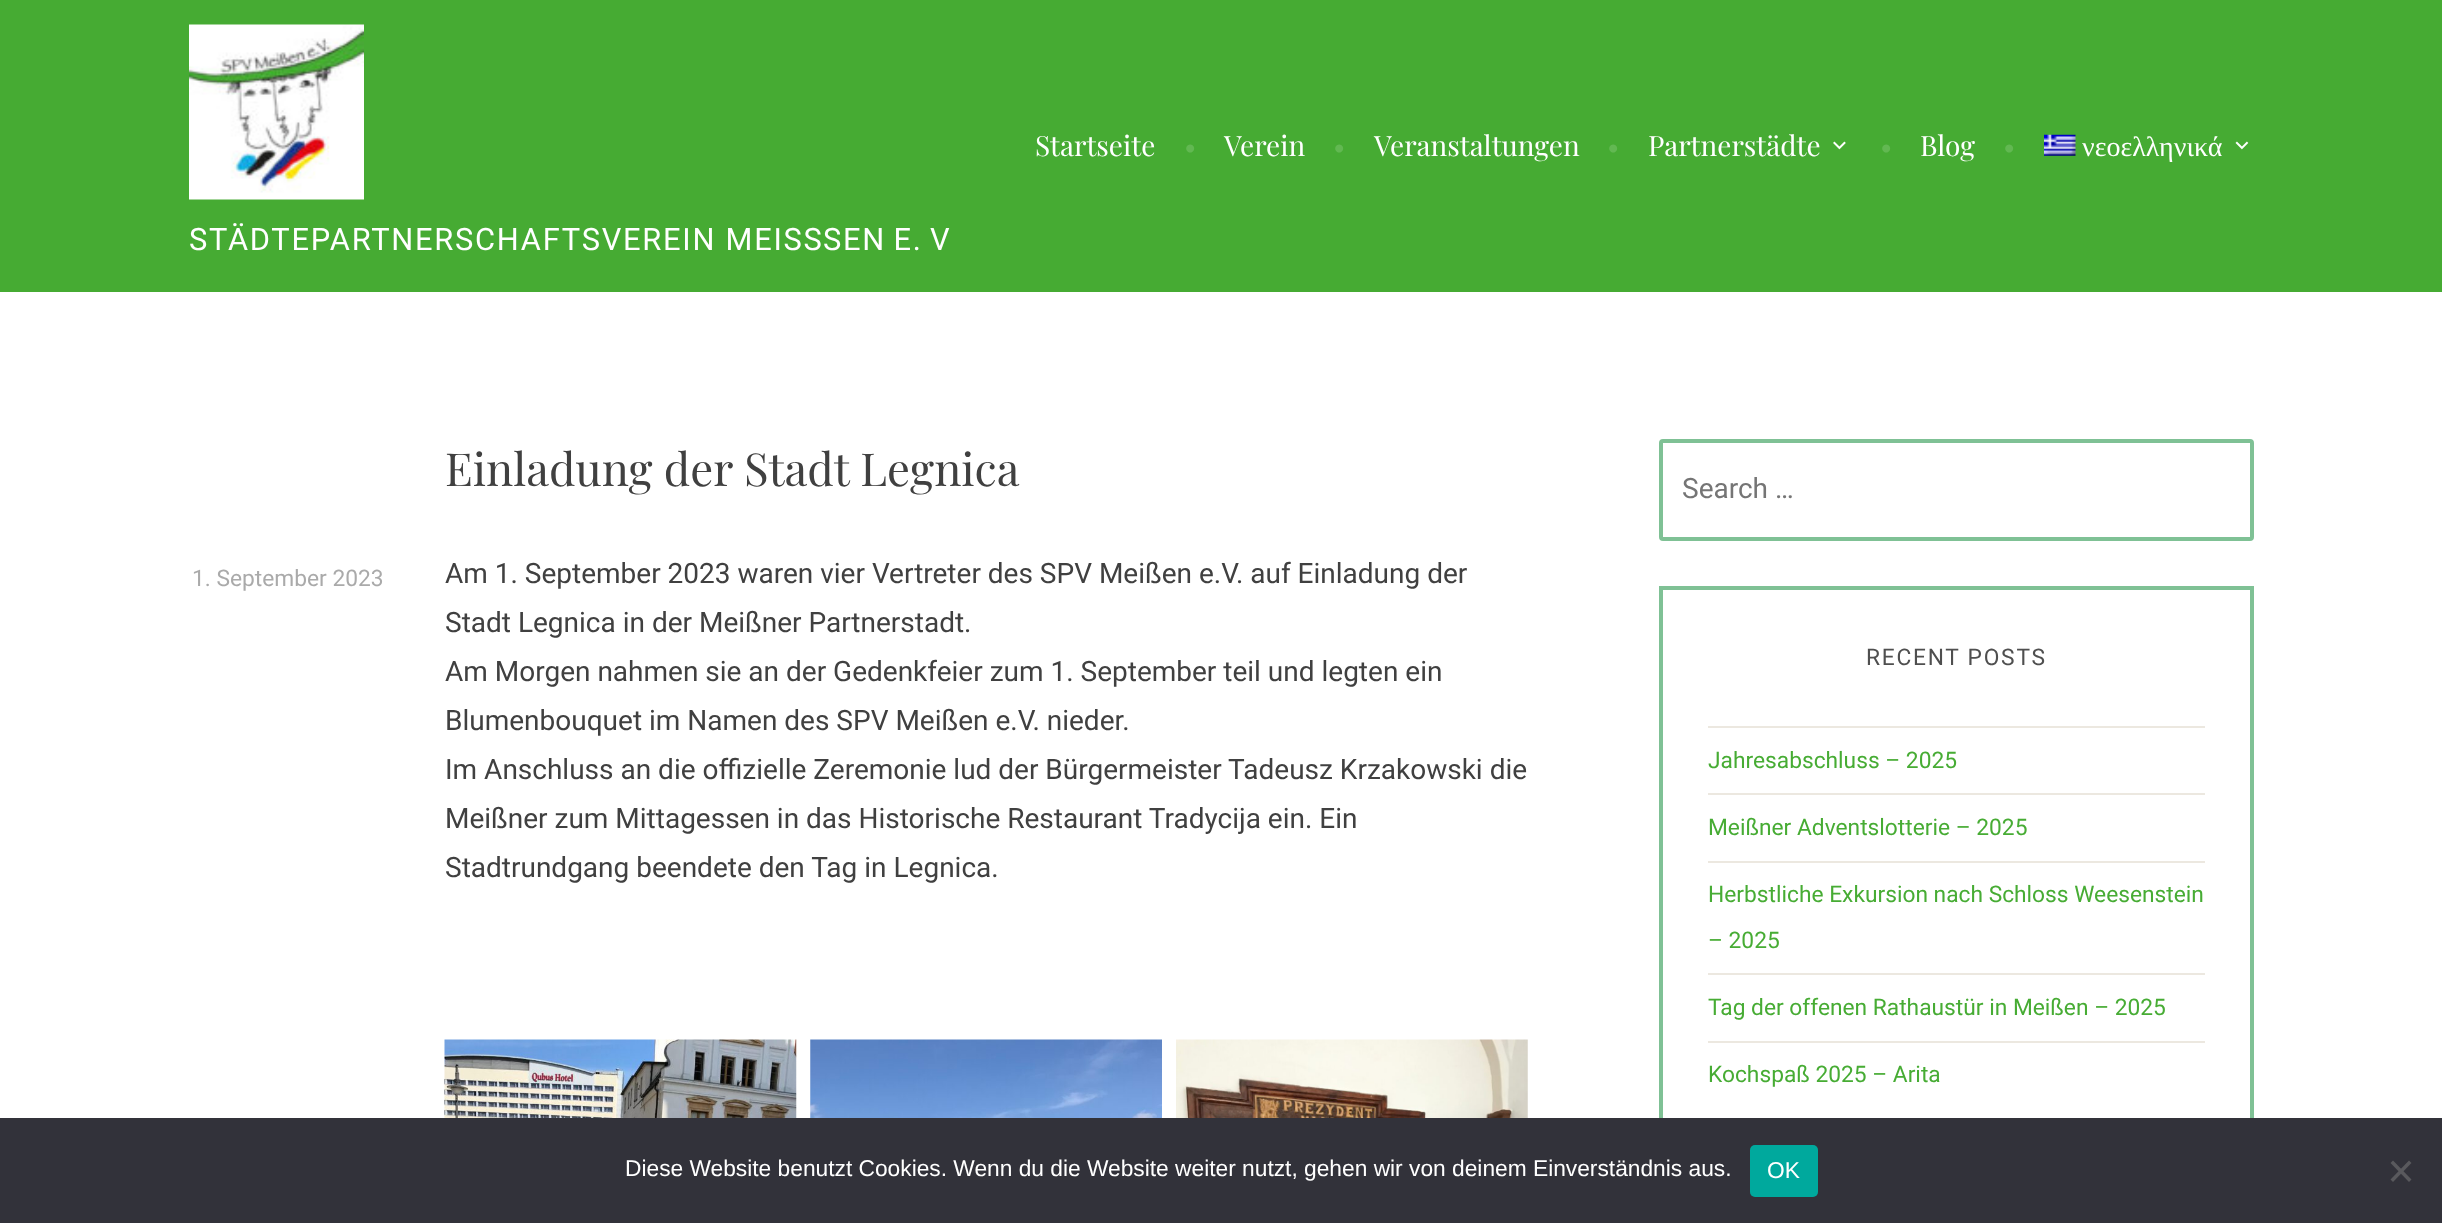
<svg xmlns="http://www.w3.org/2000/svg" width="2442" height="1223" viewBox="0 0 2442 1223">
  <style>
    .t1 { font: 28px Playfair Display; fill: #fff; }
    .t2 { font: 28px Playfair Display; fill: #62b852; }
    .t3 { font: 28px Liberation Serif; fill: #fff; }
    .t4 { font: 30.8px Roboto; letter-spacing: 1.75px; fill: #fff; }
    .t5 { font: 45.5px Playfair Display; fill: #404040; }
    .t6 { font: 22.75px Roboto; fill: #aaa; }
    .t7 { font: 28px Roboto; fill: #404040; }
    .t8 { font: 28px Roboto; fill: #757575; }
    .t9 { font: 22.75px Roboto; letter-spacing: 1.75px; fill: #4f4f4f; }
    .t10 { font: 22.75px Roboto; fill: #47ac34; }
    .t11 { font: 22.75px Liberation Sans; fill: #fff; }
  </style>
  <rect width="100%" height="100%" fill="#fff"/>
  <rect x="0" y="0" width="2442" height="292" fill="#46ab33"/>
  <text x="1035" y="156" class="t1">Startseite</text>
  <text x="1184" y="156" class="t2">•</text>
  <text x="1224" y="156" class="t1">Verein</text>
  <text x="1333" y="156" class="t2">•</text>
  <text x="1374" y="156" class="t1">Veranstaltungen</text>
  <text x="1607" y="156" class="t2">•</text>
  <text x="1648" y="156" class="t1">Partnerstädte</text>
  <image x="1833" y="141" width="13" height="9" href="images/1.png"/>
  <text x="1880" y="156" class="t2">•</text>
  <text x="1920" y="156" class="t1">Blog</text>
  <text x="2003" y="156" class="t2">•</text>
  <image x="2044" y="134" width="32" height="22" href="images/2.png"/>
  <text x="2082" y="156" class="t3">νεοελληνικά</text>
  <image x="2235" y="141" width="14" height="9" href="images/3.png"/>
  <image x="189" y="24" width="175" height="176" href="images/4.png"/>
  <text x="189" y="250" class="t4">STÄDTEPARTNERSCHAFTSVEREIN MEISS</text>
  <text x="823" y="250" word-spacing="-2" class="t4">SEN E. V</text>
  <text x="445" y="486" class="t5">Einladung der Stadt Legnica</text>
  <text x="192" y="586" class="t6">1. September 2023</text>
  <text x="445" y="583" class="t7">Am 1. September 2023 waren vier Vertreter des SPV Meißen e.V. auf Einladung der</text>
  <text x="445" y="632" class="t7">Stadt Legnica in der Meißner Partnerstadt.</text>
  <text x="445" y="681" class="t7">Am Morgen nahmen sie an der Gedenkfeier zum 1. September teil und legten ein</text>
  <text x="445" y="730" class="t7">Blumenbouquet im Namen des SPV Meißen e.V. nieder.</text>
  <text x="445" y="779" class="t7">Im Anschluss an die offizielle Zeremonie lud der Bürgermeister Tadeusz Krzakowski die</text>
  <text x="445" y="828" class="t7">Meißner zum Mittagessen in das Historische Restaurant Tradycija ein. Ein</text>
  <text x="445" y="877" class="t7">Stadtrundgang beendete den Tag in Legnica.</text>
  <image x="444" y="1039" width="353" height="79" href="images/5.png"/>
  <image x="810" y="1039" width="352" height="79" href="images/6.png"/>
  <image x="1176" y="1039" width="352" height="79" href="images/7.png"/>
  <rect x="1661" y="441" width="591" height="98" rx="2" fill="none" stroke="#7fc195" stroke-width="4"/>
  <text x="1682" y="498" class="t8">Search …</text>
  <rect x="1661" y="588" width="591" height="567" fill="none" stroke="#7fc195" stroke-width="4"/>
  <text x="1866" y="665" class="t9">RECENT POSTS</text>
  <rect x="1708" y="726" width="497" height="2" fill="#ece8e0"/>
  <text x="1708" y="768" class="t10">Jahresabschluss – 2025</text>
  <rect x="1708" y="793" width="497" height="2" fill="#ece8e0"/>
  <text x="1708" y="835" class="t10">Meißner Adventslotterie – 2025</text>
  <rect x="1708" y="861" width="497" height="2" fill="#ece8e0"/>
  <text x="1708" y="902" class="t10">Herbstliche Exkursion nach Schloss Weesenstein</text>
  <text x="1708" y="948" class="t10">– 2025</text>
  <rect x="1708" y="973" width="497" height="2" fill="#ece8e0"/>
  <text x="1708" y="1015" class="t10">Tag der offenen Rathaustür in Meißen – 2025</text>
  <rect x="1708" y="1041" width="497" height="2" fill="#ece8e0"/>
  <text x="1708" y="1082" class="t10">Kochspaß 2025 – Arita</text>
  <rect x="0" y="1118" width="2442" height="105" fill="#32323a"/>
  <text x="625" y="1176" class="t11">Diese Website benutzt Cookies. Wenn du die Website weiter nutzt, gehen wir von deinem Einverständnis aus.</text>
  <rect x="1750" y="1145" width="68" height="52" rx="5" fill="#00a99d"/>
  <text x="1767" y="1178" class="t11">OK</text>
  <path d="M2409 1160.5L2411.5 1163L2393 1182L2390.5 1179.5Z" fill="#59595d"/>
  <path d="M2390.5 1163L2393 1160.5L2411.5 1179.5L2409 1182Z" fill="#59595d"/>
</svg>
